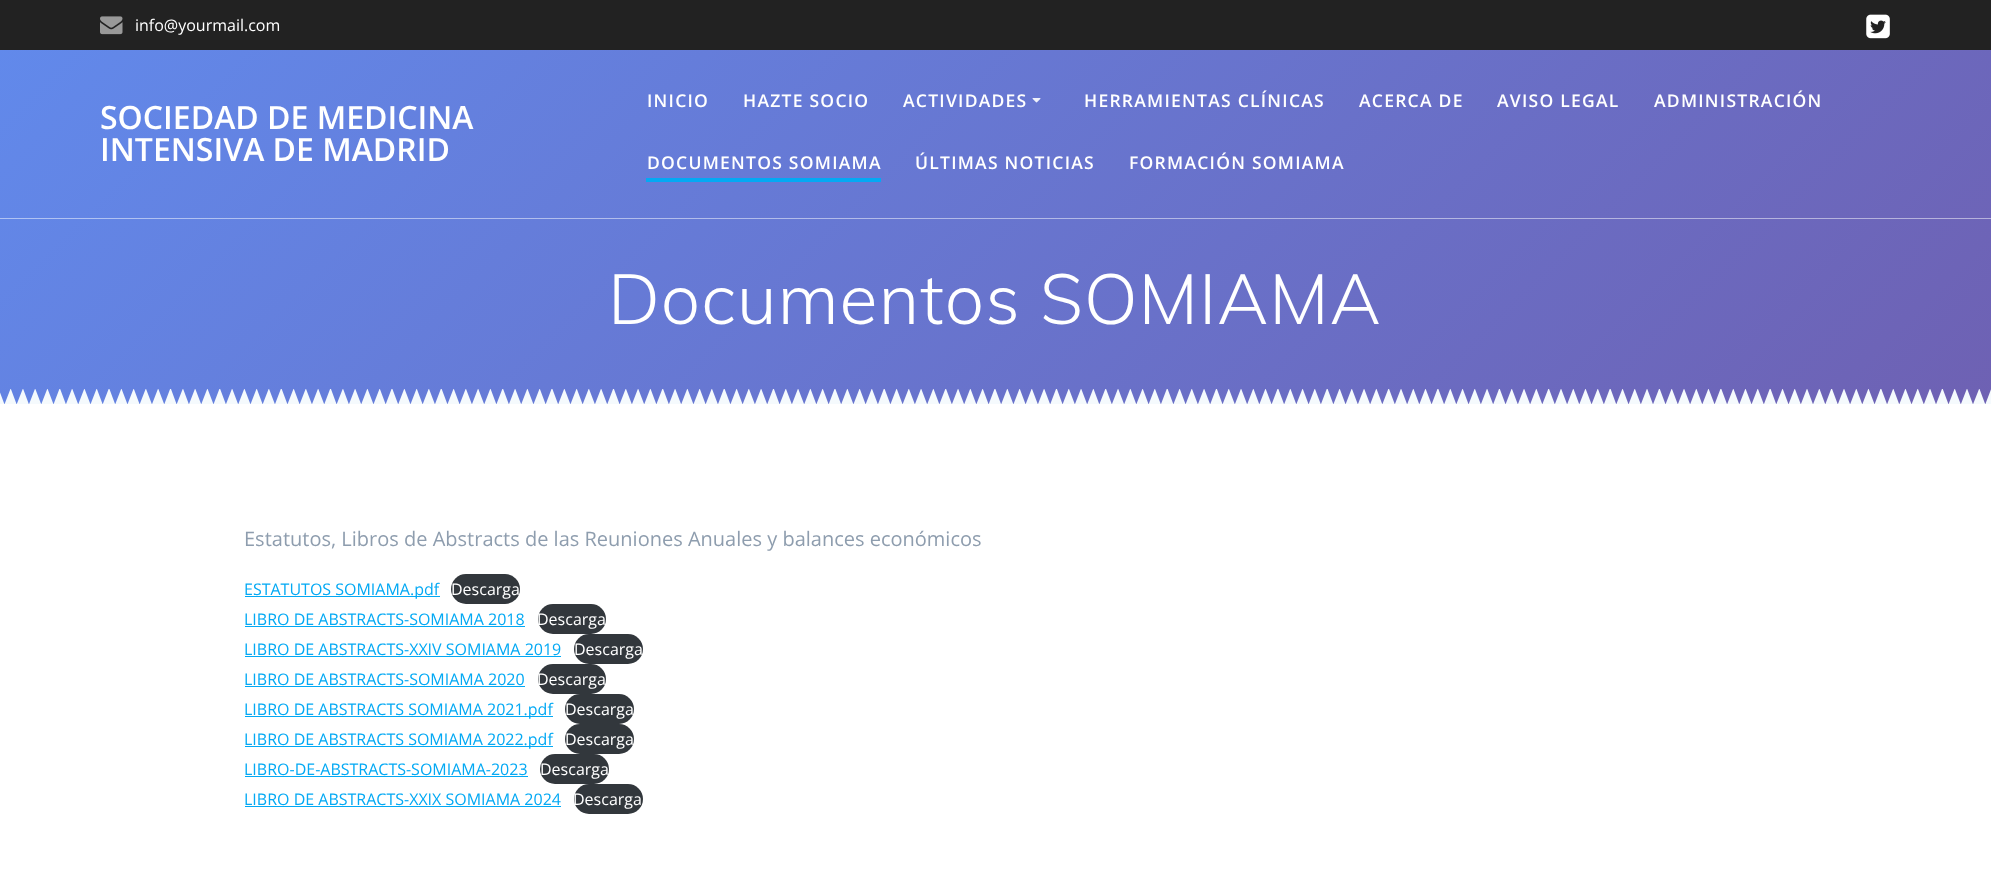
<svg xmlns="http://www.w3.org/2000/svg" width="1991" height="885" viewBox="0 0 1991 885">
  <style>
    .t1 { font: 16px Open Sans; fill: #fff; }
    .t2 { font: 600 32px Open Sans; fill: #fff; }
    .t3 { font: 600 17.5px Open Sans; letter-spacing: 1.25px; fill: #fff; }
    .t4 { font: 300 70px Muli; letter-spacing: 1.1px; fill: #fff; }
    .t5 { font: 20px Open Sans; fill: #8e9dae; }
    .t6 { font: 16px Open Sans; fill: #03a9f4; }
  </style>
  <defs>
    <linearGradient id="g1" gradientUnits="userSpaceOnUse" x1="397" y1="-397" x2="1594" y2="801"><stop offset="0" stop-color="#618aec"/><stop offset="1" stop-color="#6e61b3"/></linearGradient>
    <linearGradient id="g2" gradientUnits="userSpaceOnUse" x1="397" y1="-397" x2="1594" y2="801"><stop offset="0" stop-color="#b0c5f6"/><stop offset="1" stop-color="#b7b0d9"/></linearGradient>
  </defs>
  <rect width="100%" height="100%" fill="#fff"/>
  <rect x="0" y="0" width="1991" height="50" fill="#222"/>
  <image x="100" y="16" width="23" height="19" href="images/1.png"/>
  <text x="135" y="31" class="t1">info@yourmail.com</text>
  <image x="1866" y="14" width="24" height="25" href="images/2.png"/>
  <rect x="0" y="50" width="1991" height="354" fill="url(#g1)"/>
  <text x="100" y="129" class="t2">SOCIEDAD DE MEDICINA</text>
  <text x="100" y="161" class="t2">INTENSIVA DE MADRID</text>
  <text x="647" y="107" class="t3">INICIO</text>
  <text x="743" y="107" class="t3">HAZTE SOCIO</text>
  <text x="903" y="107" class="t3">ACTIVIDADES</text>
  <image x="1032" y="98" width="9" height="5" href="images/3.png"/>
  <text x="1084" y="107" class="t3">HERRAMIENTAS CLÍNICAS</text>
  <text x="1359" y="107" class="t3">ACERCA DE</text>
  <text x="1497" y="107" class="t3">AVISO LEGAL</text>
  <text x="1654" y="107" class="t3">ADMINISTRACIÓN</text>
  <rect x="646" y="178" width="235" height="4" fill="#03a9f4"/>
  <text x="647" y="169" class="t3">DOCUMENTOS SOMIAMA</text>
  <text x="915" y="169" class="t3">ÚLTIMAS NOTICIAS</text>
  <text x="1129" y="169" class="t3">FORMACIÓN SOMIAMA</text>
  <rect x="0" y="218" width="1991" height="1" fill="url(#g2)"/>
  <text x="608" y="324" class="t4">Documentos SOMIAMA</text>
  <image x="0" y="389" width="1991" height="15" href="images/4.png"/>
  <text x="244" y="546" class="t5">Estatutos, Libros de Abstracts de las Reuniones Anuales y balances económicos</text>
  <rect x="245" y="596" width="195" height="1" fill="#03a9f4"/>
  <text x="244" y="595" class="t6">ESTATUTOS SOMIAMA.pdf</text>
  <rect x="451" y="574" width="69" height="30" rx="15" fill="#32373c"/>
  <text x="451" y="595" class="t1">Descarga</text>
  <text x="244" y="625" class="t6">LIBRO DE ABSTRACTS-SOMIAMA 2018</text>
  <rect x="245" y="626" width="280" height="1" fill="#03a9f4"/>
  <rect x="538" y="604" width="68" height="30" rx="15" fill="#32373c"/>
  <text x="537" y="625" class="t1">Descarga</text>
  <text x="244" y="655" class="t6">LIBRO DE ABSTRACTS-XXIV SOMIAMA 2019</text>
  <rect x="245" y="656" width="316" height="1" fill="#03a9f4"/>
  <rect x="574" y="634" width="69" height="30" rx="15" fill="#32373c"/>
  <text x="574" y="655" class="t1">Descarga</text>
  <text x="244" y="685" class="t6">LIBRO DE ABSTRACTS-SOMIAMA 2020</text>
  <rect x="245" y="686" width="280" height="1" fill="#03a9f4"/>
  <rect x="538" y="664" width="68" height="30" rx="15" fill="#32373c"/>
  <text x="537" y="685" class="t1">Descarga</text>
  <rect x="245" y="716" width="308" height="1" fill="#03a9f4"/>
  <text x="244" y="715" class="t6">LIBRO DE ABSTRACTS SOMIAMA 2021.pdf</text>
  <rect x="565" y="694" width="69" height="30" rx="15" fill="#32373c"/>
  <text x="565" y="715" class="t1">Descarga</text>
  <rect x="245" y="746" width="308" height="1" fill="#03a9f4"/>
  <text x="244" y="745" class="t6">LIBRO DE ABSTRACTS SOMIAMA 2022.pdf</text>
  <rect x="565" y="724" width="69" height="30" rx="15" fill="#32373c"/>
  <text x="565" y="745" class="t1">Descarga</text>
  <text x="244" y="775" class="t6">LIBRO-DE-ABSTRACTS-SOMIAMA-2023</text>
  <rect x="245" y="776" width="283" height="1" fill="#03a9f4"/>
  <rect x="540" y="754" width="69" height="30" rx="15" fill="#32373c"/>
  <text x="540" y="775" class="t1">Descarga</text>
  <text x="244" y="805" class="t6">LIBRO DE ABSTRACTS-XXIX SOMIAMA 2024</text>
  <rect x="245" y="806" width="316" height="1" fill="#03a9f4"/>
  <rect x="574" y="784" width="69" height="30" rx="15" fill="#32373c"/>
  <text x="573" y="805" class="t1">Descarga</text>
</svg>
